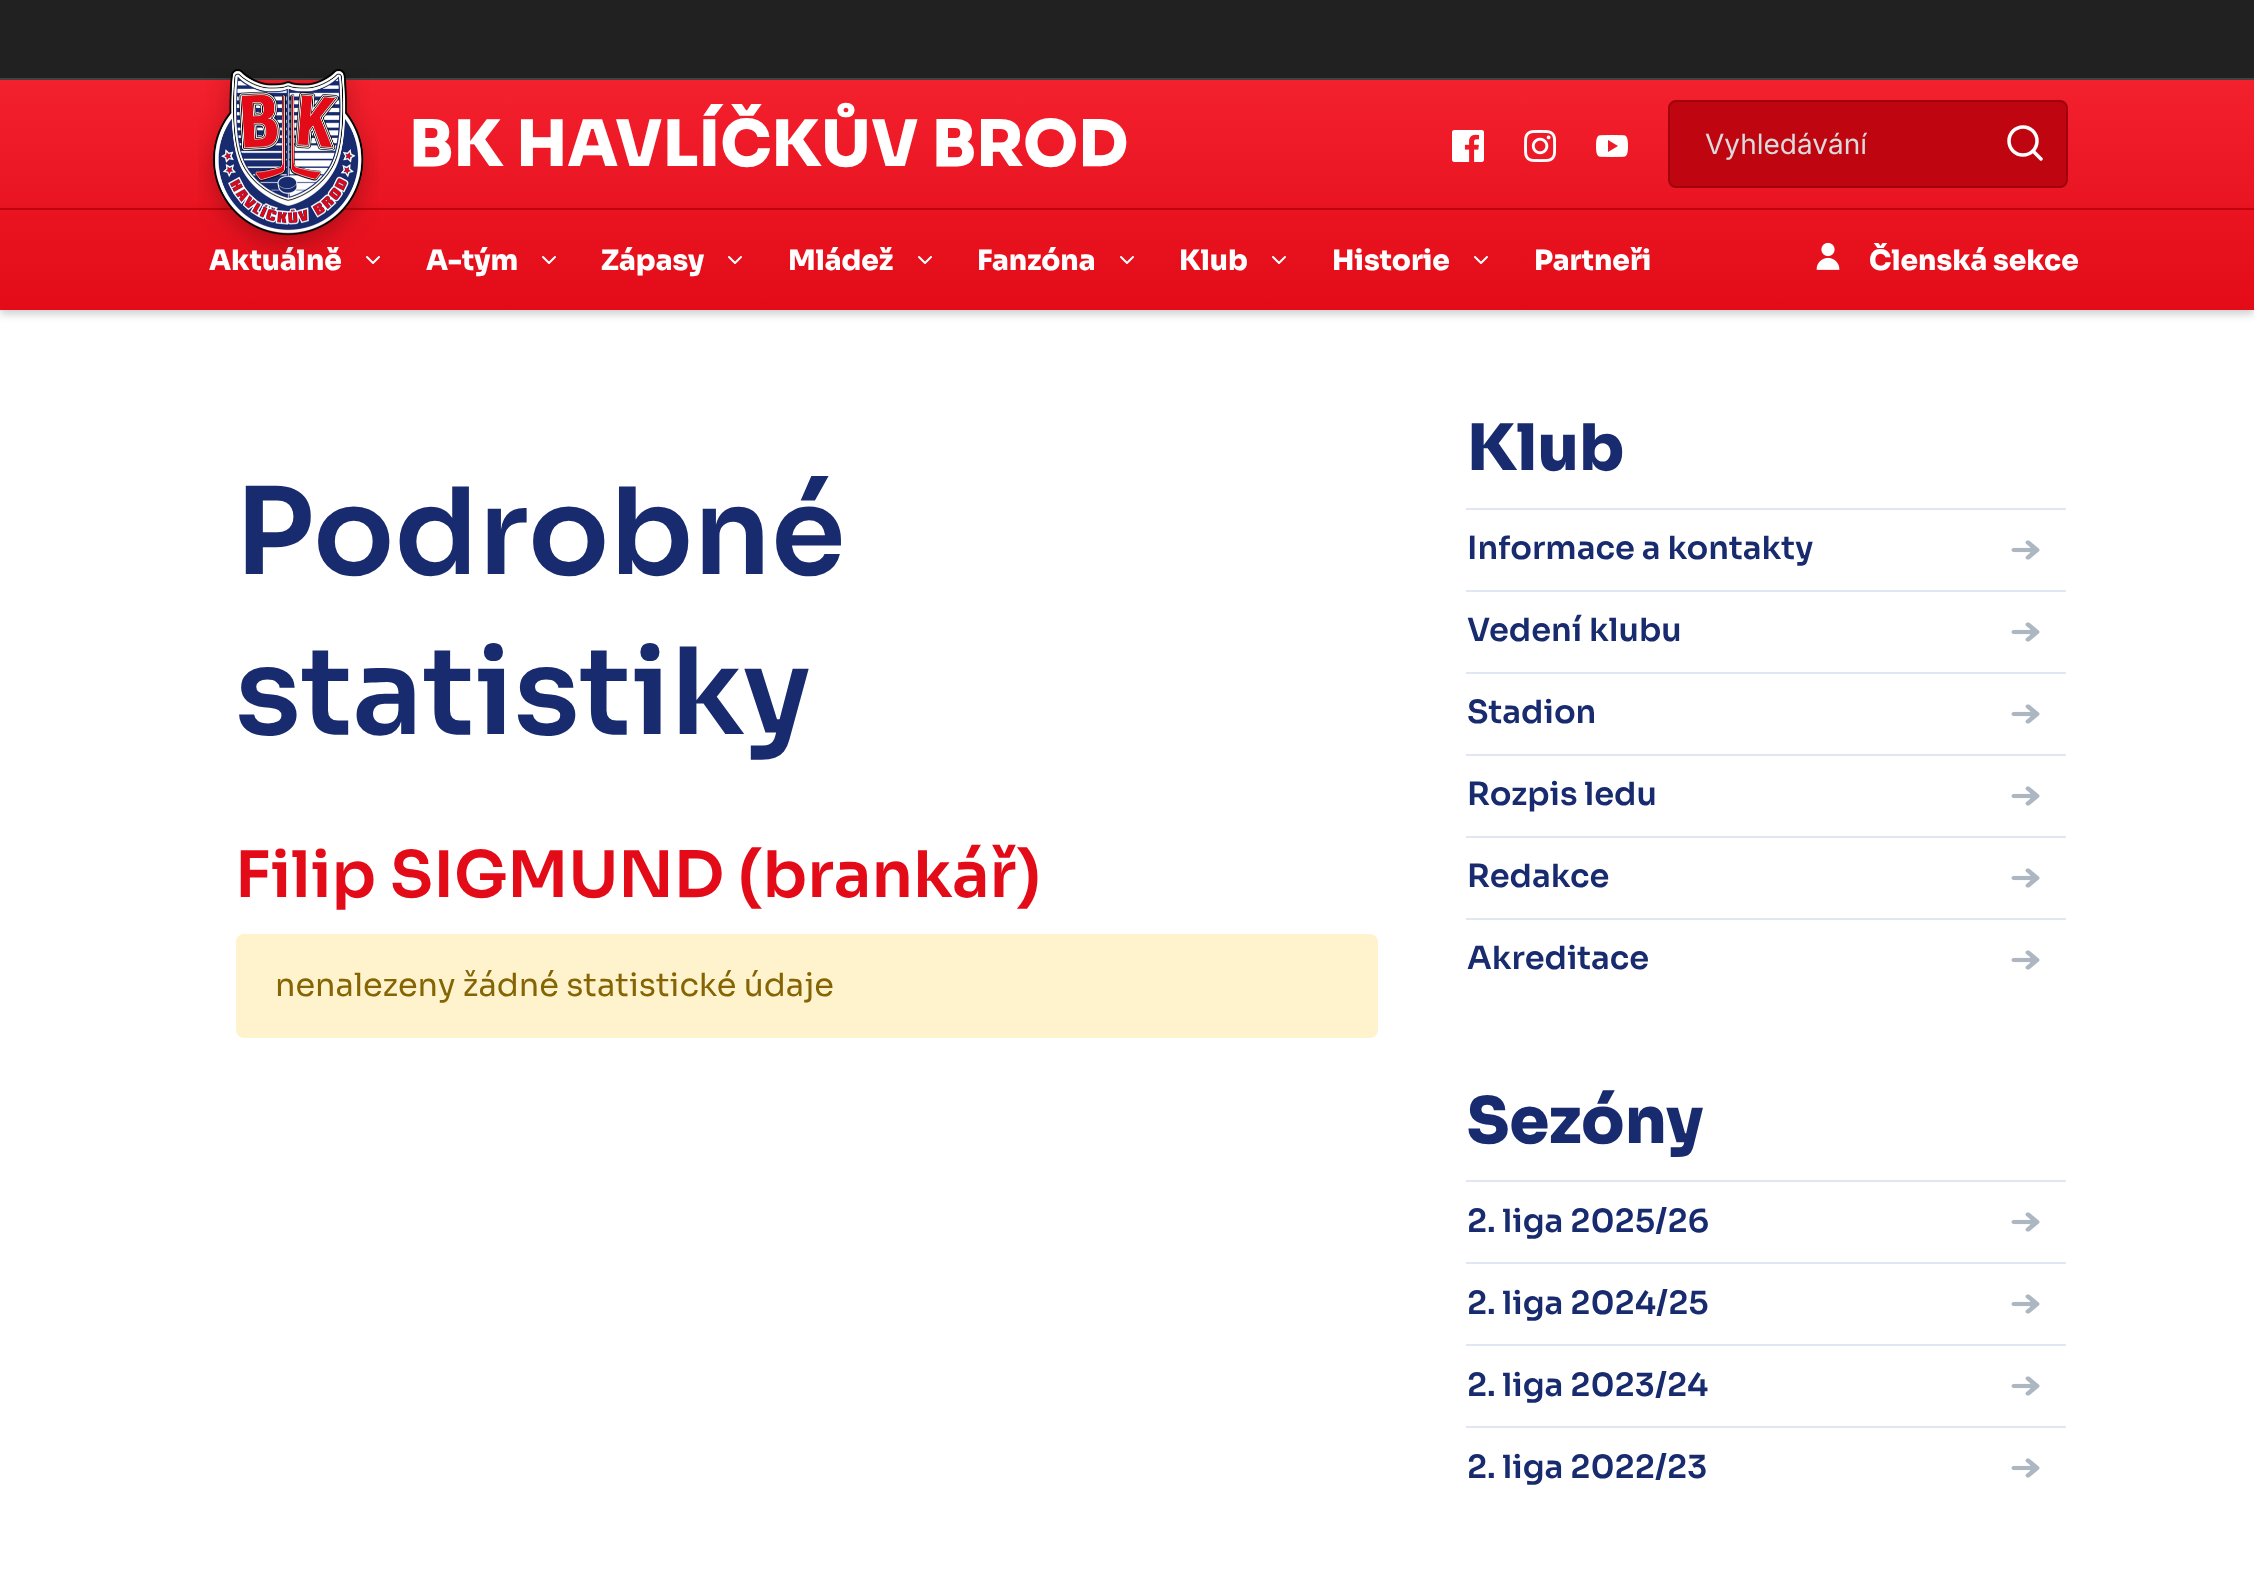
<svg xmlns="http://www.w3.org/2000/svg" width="2254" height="1580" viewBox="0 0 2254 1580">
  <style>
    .t1 { font: 800 64px Sora; fill: #fff; }
    .t2 { font: 28px Inter; fill: #dbdbdb; }
    .t3 { font: 800 28px Sora; fill: #fff; }
    .t4 { font: 600 120px Sora; fill: #192b6f; }
    .t5 { font: 600 64px Sora; fill: #e30b18; }
    .t6 { font: 32px Sora; fill: #856404; }
    .t7 { font: 800 64px Sora; fill: #192b6f; }
    .t8 { font: 600 32px Sora; fill: #192b6f; }
  </style>
  <defs>
    <linearGradient id="g1" gradientUnits="userSpaceOnUse" x1="1127" y1="80" x2="1127" y2="310"><stop offset="0" stop-color="#f3202d"/><stop offset="1" stop-color="#e30b18"/></linearGradient>
    <clipPath id="clip1"><path d="M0 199H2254V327H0ZM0 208H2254V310H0Z" clip-rule="evenodd"/></clipPath>
  </defs>
  <rect width="100%" height="100%" fill="#fff"/>
  <rect x="0" y="0" width="2254" height="78" fill="#212121"/>
  <rect x="0" y="78" width="2254" height="2" fill="#424242"/>
  <rect x="0" y="80" width="2254" height="230" fill="url(#g1)"/>
  <text x="409" y="166" class="t1">BK HAVLÍČKŮV BROD</text>
  <image x="1452" y="130" width="32" height="32" href="images/1.png"/>
  <image x="1524" y="130" width="32" height="32" href="images/2.png"/>
  <image x="1596" y="135" width="32" height="22" href="images/3.png"/>
  <rect x="1669" y="101" width="398" height="86" rx="7" fill="#bf0510" stroke="#a0030c" stroke-width="2"/>
  <text x="1705" y="154" class="t2">Vyhledávání</text>
  <circle cx="2023" cy="141" r="14" fill="none" stroke="#fff" stroke-width="3.5"/>
  <path d="M2041 159L2033 151" fill="none" stroke="#fff" stroke-width="3.5" stroke-linecap="round" stroke-linejoin="round"/>
  <g clip-path="url(#clip1)">
    <rect x="0" y="212" width="2254" height="102" fill="#00000033" filter="blur(4px)"/>
  </g>
  <rect x="0" y="208" width="2254" height="2" fill="#c4000c"/>
  <text x="209" y="270" class="t3">Aktuálně</text>
  <path d="M367 257L373 263L379 257" fill="none" stroke="#fff" stroke-width="2" stroke-linecap="round" stroke-linejoin="round"/>
  <image x="198" y="69" width="181" height="190" href="images/4.png"/>
  <image x="1816" y="242" width="24" height="28" href="images/5.png"/>
  <text x="1869" y="270" class="t3">Členská sekce</text>
  <text x="426" y="270" class="t3">A-tým</text>
  <path d="M543 257L549 263L555 257" fill="none" stroke="#fff" stroke-width="2" stroke-linecap="round" stroke-linejoin="round"/>
  <text x="601" y="270" class="t3">Zápasy</text>
  <path d="M729 257L735 263L741 257" fill="none" stroke="#fff" stroke-width="2" stroke-linecap="round" stroke-linejoin="round"/>
  <text x="788" y="270" class="t3">Mládež</text>
  <path d="M919 257L925 263L931 257" fill="none" stroke="#fff" stroke-width="2" stroke-linecap="round" stroke-linejoin="round"/>
  <text x="977" y="270" class="t3">Fanzóna</text>
  <path d="M1121 257L1127 263L1133 257" fill="none" stroke="#fff" stroke-width="2" stroke-linecap="round" stroke-linejoin="round"/>
  <text x="1179" y="270" class="t3">Klub</text>
  <path d="M1273 257L1279 263L1285 257" fill="none" stroke="#fff" stroke-width="2" stroke-linecap="round" stroke-linejoin="round"/>
  <text x="1332" y="270" class="t3">Historie</text>
  <path d="M1475 257L1481 263L1487 257" fill="none" stroke="#fff" stroke-width="2" stroke-linecap="round" stroke-linejoin="round"/>
  <text x="1534" y="270" class="t3">Partneři</text>
  <text x="235" y="574" class="t4">Podrobné</text>
  <text x="235" y="734" class="t4">statistiky</text>
  <text x="235" y="897" class="t5">Filip SIGMUND (brankář)</text>
  <rect x="236" y="934" width="1142" height="104" rx="8" fill="#fff3cd"/>
  <text x="275" y="996" class="t6">nenalezeny žádné statistické údaje</text>
  <text x="1467" y="470" class="t7">Klub</text>
  <rect x="1466" y="508" width="600" height="2" fill="#dee7f2"/>
  <image x="2011" y="540" width="29" height="20" href="images/6.png"/>
  <text x="1467" y="559" class="t8">Informace a kontakty</text>
  <rect x="1466" y="590" width="600" height="2" fill="#dee7f2"/>
  <image x="2011" y="622" width="29" height="20" href="images/6.png"/>
  <text x="1467" y="641" class="t8">Vedení klubu</text>
  <rect x="1466" y="672" width="600" height="2" fill="#dee7f2"/>
  <image x="2011" y="704" width="29" height="20" href="images/6.png"/>
  <text x="1467" y="723" class="t8">Stadion</text>
  <rect x="1466" y="754" width="600" height="2" fill="#dee7f2"/>
  <image x="2011" y="786" width="29" height="20" href="images/6.png"/>
  <text x="1467" y="805" class="t8">Rozpis ledu</text>
  <rect x="1466" y="836" width="600" height="2" fill="#dee7f2"/>
  <image x="2011" y="868" width="29" height="20" href="images/6.png"/>
  <text x="1467" y="887" class="t8">Redakce</text>
  <rect x="1466" y="918" width="600" height="2" fill="#dee7f2"/>
  <image x="2011" y="950" width="29" height="20" href="images/6.png"/>
  <text x="1467" y="969" class="t8">Akreditace</text>
  <text x="1467" y="1143" class="t7">Sezóny</text>
  <rect x="1466" y="1180" width="600" height="2" fill="#dee7f2"/>
  <image x="2011" y="1212" width="29" height="20" href="images/6.png"/>
  <text x="1467" y="1232" class="t8">2. liga 2025/26</text>
  <rect x="1466" y="1262" width="600" height="2" fill="#dee7f2"/>
  <image x="2011" y="1294" width="29" height="20" href="images/6.png"/>
  <text x="1467" y="1314" class="t8">2. liga 2024/25</text>
  <rect x="1466" y="1344" width="600" height="2" fill="#dee7f2"/>
  <image x="2011" y="1376" width="29" height="20" href="images/6.png"/>
  <text x="1467" y="1396" class="t8">2. liga 2023/24</text>
  <rect x="1466" y="1426" width="600" height="2" fill="#dee7f2"/>
  <image x="2011" y="1458" width="29" height="20" href="images/6.png"/>
  <text x="1467" y="1478" class="t8">2. liga 2022/23</text>
</svg>
